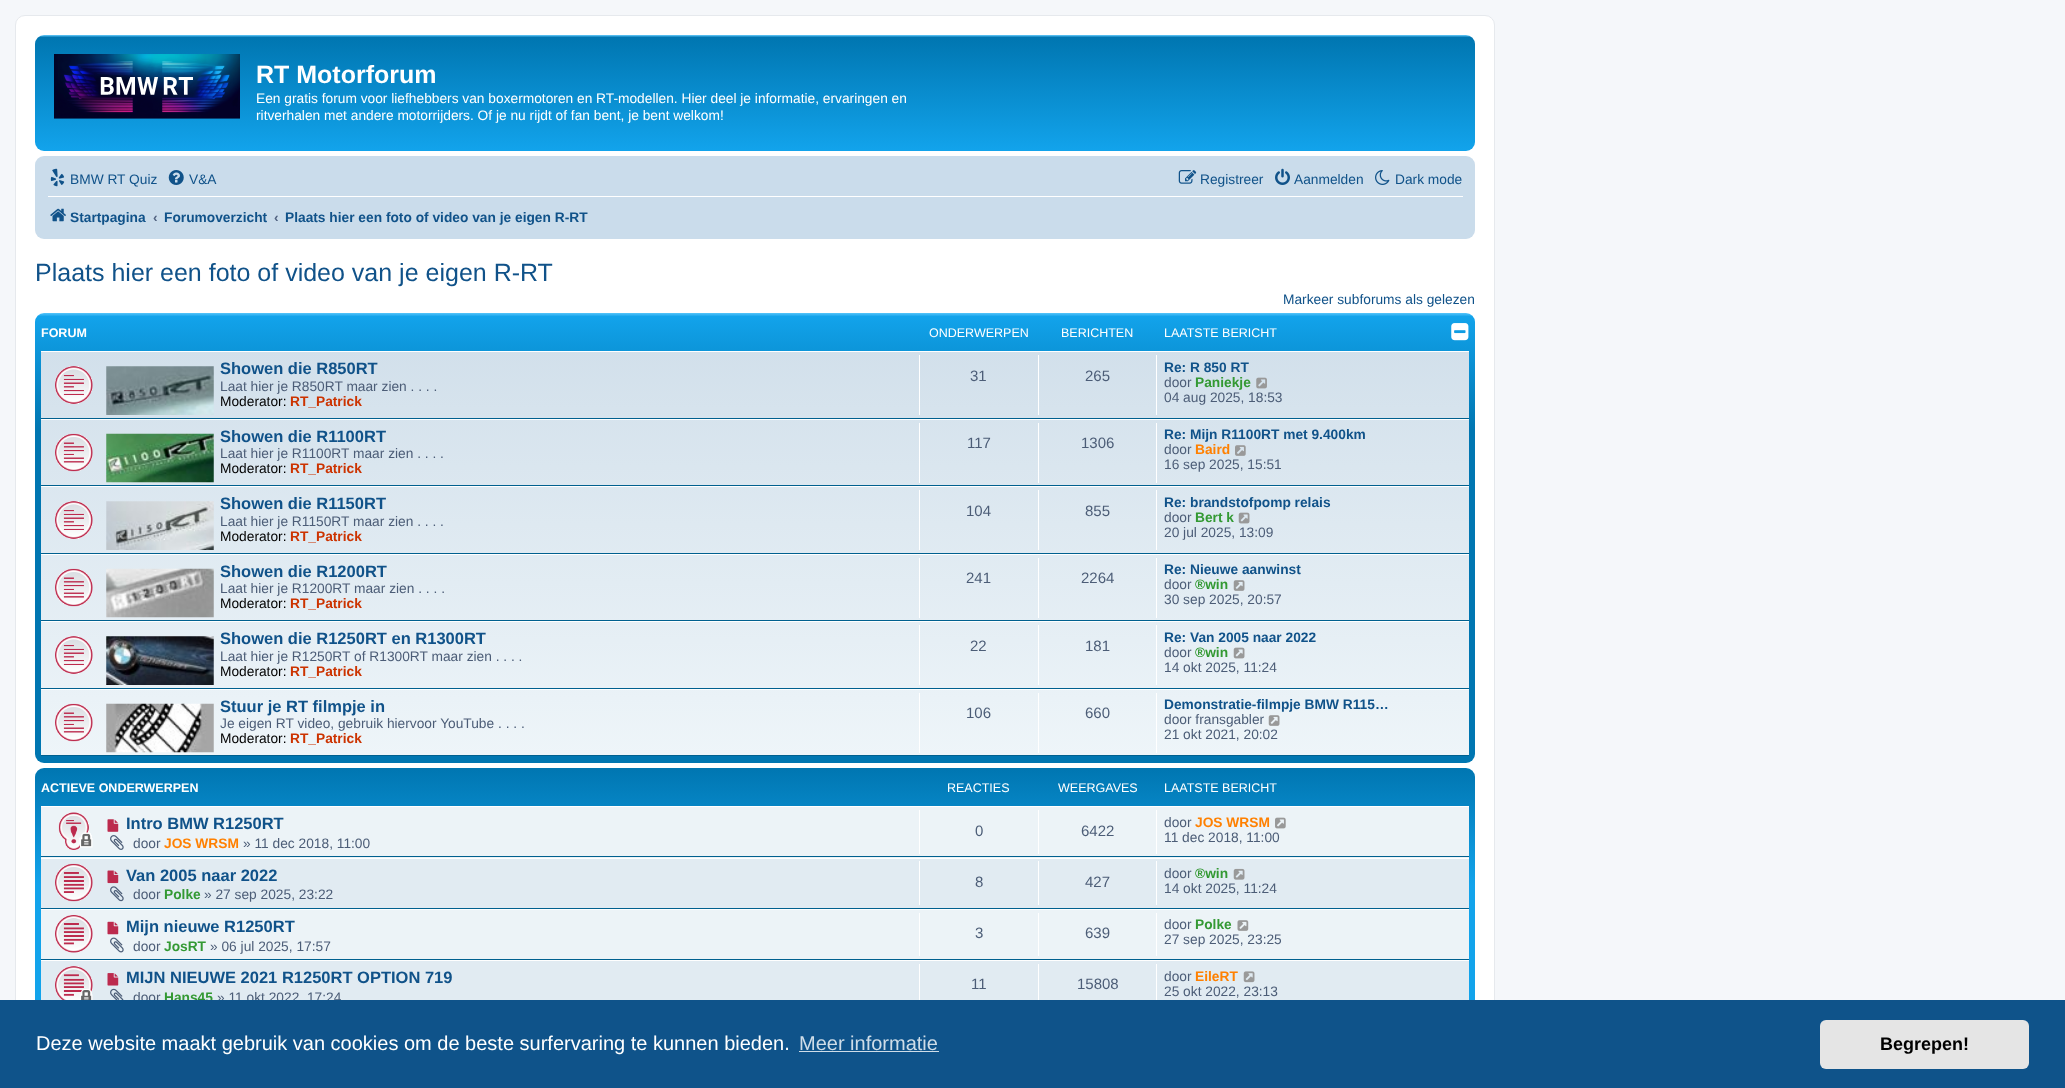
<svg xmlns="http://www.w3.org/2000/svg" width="2065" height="1088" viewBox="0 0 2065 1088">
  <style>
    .t1 { font: bold 25px Liberation Sans; fill: #fff; }
    .t2 { font: 13.75px Liberation Sans; fill: #fff; }
    .t3 { font: 13.75px Liberation Sans; fill: #105289; }
    .t4 { font: bold 13.75px Liberation Sans; fill: #105289; }
    .t5 { font: bold 13.75px Liberation Sans; fill: #536482; }
    .t6 { font: 25px Liberation Sans; fill: #105289; }
    .t7 { font: bold 12.5px Liberation Sans; fill: #fff; }
    .t8 { font: 12.5px Liberation Sans; fill: #fff; }
    .t9 { font: bold 16.5px Liberation Sans; fill: #105289; }
    .t10 { font: 13.75px Liberation Sans; fill: #4c5d77; }
    .t11 { font: 13.75px Liberation Sans; fill: #000; }
    .t12 { font: bold 13.75px Liberation Sans; fill: #c30; }
    .t13 { font: 15px Liberation Sans; fill: #4c5d77; }
    .t14 { font: bold 13.75px Liberation Sans; fill: #393; }
    .t15 { font: bold 13.75px Liberation Sans; fill: #ff8000; }
    .t16 { font: 20px Liberation Sans; fill: #fff; }
    .t17 { font: 20px Liberation Sans; fill: #cfdde8; }
    .t18 { font: bold 18px Liberation Sans; fill: #000; }
  </style>
  <defs>
    <linearGradient id="g1" gradientUnits="userSpaceOnUse" x1="755" y1="35" x2="755" y2="151"><stop offset="0" stop-color="#6aceff"/><stop offset="0.02" stop-color="#0076b1"/><stop offset="0.99" stop-color="#12a3eb"/><stop offset="1" stop-color="#12a3eb"/></linearGradient>
    <linearGradient id="g2" gradientUnits="userSpaceOnUse" x1="755" y1="312" x2="755" y2="763"><stop offset="0" stop-color="#6aceff"/><stop offset="0.01" stop-color="#12a3eb"/><stop offset="0.26" stop-color="#0076b1"/><stop offset="1" stop-color="#0076b1"/></linearGradient>
    <linearGradient id="g3" gradientUnits="userSpaceOnUse" x1="755" y1="351" x2="755" y2="756"><stop offset="0" stop-color="#d2e0eb"/><stop offset="1" stop-color="#eef5f9"/></linearGradient>
    <linearGradient id="g4" gradientUnits="userSpaceOnUse" x1="755" y1="768" x2="755" y2="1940"><stop offset="0" stop-color="#6aceff"/><stop offset="0" stop-color="#0076b1"/><stop offset="0.1" stop-color="#12a3eb"/><stop offset="1" stop-color="#12a3eb"/></linearGradient>
  </defs>
  <rect width="100%" height="100%" fill="#f5f7fa"/>
  <rect x="15.5" y="15.5" width="1479" height="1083" rx="9.5" fill="#fff" stroke="#e6e9ed"/>
  <rect x="35" y="35" width="1440" height="116" rx="9" fill="url(#g1)"/>
  <image x="54" y="54" width="186" height="65" href="images/1.png"/>
  <text x="256" y="83" class="t1">RT Motorforum</text>
  <text x="256" y="103" class="t2">Een gratis forum voor liefhebbers van boxermotoren en RT-modellen. Hier deel je informatie, ervaringen en</text>
  <text x="256" y="120" class="t2">ritverhalen met andere motorrijders. Of je nu rijdt of fan bent, je bent welkom!</text>
  <rect x="35" y="156" width="1440" height="83" rx="9" fill="#cadceb"/>
  <image x="50" y="168" width="15" height="19" href="images/2.png"/>
  <text x="70" y="184" class="t3">BMW RT Quiz</text>
  <image x="168" y="170" width="16" height="15" href="images/3.png"/>
  <text x="189" y="184" class="t3">V&amp;A</text>
  <image x="1178" y="170" width="19" height="14" href="images/4.png"/>
  <text x="1200" y="184" class="t3">Registreer</text>
  <image x="1275" y="168" width="15" height="17" href="images/5.png"/>
  <text x="1294" y="184" class="t3">Aanmelden</text>
  <image x="1375" y="170" width="15" height="15" href="images/6.png"/>
  <text x="1395" y="184" class="t3">Dark mode</text>
  <rect x="48" y="196" width="1415" height="1" fill="#fff"/>
  <image x="50" y="208" width="16" height="14" href="images/7.png"/>
  <text x="70" y="222" class="t4">Startpagina</text>
  <text x="153" y="222" class="t5">‹</text>
  <text x="164" y="222" class="t4">Forumoverzicht</text>
  <text x="274" y="222" class="t5">‹</text>
  <text x="285" y="222" class="t4">Plaats hier een foto of video van je eigen R-RT</text>
  <text x="35" y="281" class="t6">Plaats hier een foto of video van je eigen R-RT</text>
  <text x="1283" y="304" class="t3">Markeer subforums als gelezen</text>
  <rect x="35" y="313" width="1440" height="450" rx="9" fill="url(#g2)"/>
  <text x="41" y="337" class="t7">FORUM</text>
  <text x="929" y="337" class="t8">ONDERWERPEN</text>
  <text x="1061" y="337" class="t8">BERICHTEN</text>
  <text x="1164" y="337" class="t8">LAATSTE BERICHT</text>
  <image x="1451" y="323" width="18" height="18" href="images/8.png"/>
  <rect x="41" y="352" width="1428" height="403" fill="url(#g3)"/>
  <rect x="41" y="351" width="1428" height="1" fill="#fff"/>
  <rect x="41" y="418" width="1428" height="1" fill="#00608f"/>
  <image x="55" y="366" width="38" height="38" href="images/9.png"/>
  <image x="106" y="366" width="108" height="49" href="images/10.png"/>
  <text x="220" y="374" class="t9">Showen die R850RT</text>
  <text x="220" y="391" class="t10">Laat hier je R850RT maar zien . . . .</text>
  <text x="220" y="406" class="t11">Moderator:</text>
  <text x="290" y="406" class="t12">RT_Patrick</text>
  <rect x="919" y="355" width="1" height="60" fill="#fff"/>
  <text x="970" y="381" class="t13">31</text>
  <rect x="1038" y="355" width="1" height="60" fill="#fff"/>
  <text x="1085" y="381" class="t13">265</text>
  <rect x="1156" y="355" width="1" height="60" fill="#fff"/>
  <text x="1164" y="372" class="t4">Re: R 850 RT</text>
  <text x="1164" y="387" class="t10">door</text>
  <text x="1195" y="387" class="t14">Paniekje</text>
  <image x="1256" y="377" width="11" height="12" href="images/11.png"/>
  <text x="1164" y="402" class="t10">04 aug 2025, 18:53</text>
  <rect x="41" y="419" width="1428" height="1" fill="#fff"/>
  <rect x="41" y="485" width="1428" height="1" fill="#00608f"/>
  <image x="55" y="433" width="38" height="39" href="images/12.png"/>
  <image x="106" y="433" width="108" height="50" href="images/13.png"/>
  <text x="220" y="442" class="t9">Showen die R1100RT</text>
  <text x="220" y="458" class="t10">Laat hier je R1100RT maar zien . . . .</text>
  <text x="220" y="473" class="t11">Moderator:</text>
  <text x="290" y="473" class="t12">RT_Patrick</text>
  <rect x="919" y="423" width="1" height="60" fill="#fff"/>
  <text x="967" y="448" class="t13">117</text>
  <rect x="1038" y="423" width="1" height="60" fill="#fff"/>
  <text x="1081" y="448" class="t13">1306</text>
  <rect x="1156" y="423" width="1" height="60" fill="#fff"/>
  <text x="1164" y="439" class="t4">Re: Mijn R1100RT met 9.400km</text>
  <text x="1164" y="454" class="t10">door</text>
  <text x="1195" y="454" class="t15">Baird</text>
  <image x="1235" y="445" width="11" height="11" href="images/14.png"/>
  <text x="1164" y="469" class="t10">16 sep 2025, 15:51</text>
  <rect x="41" y="486" width="1428" height="1" fill="#fff"/>
  <rect x="41" y="553" width="1428" height="1" fill="#00608f"/>
  <image x="55" y="501" width="38" height="38" href="images/15.png"/>
  <image x="106" y="501" width="108" height="49" href="images/16.png"/>
  <text x="220" y="509" class="t9">Showen die R1150RT</text>
  <text x="220" y="526" class="t10">Laat hier je R1150RT maar zien . . . .</text>
  <text x="220" y="541" class="t11">Moderator:</text>
  <text x="290" y="541" class="t12">RT_Patrick</text>
  <rect x="919" y="490" width="1" height="60" fill="#fff"/>
  <text x="966" y="516" class="t13">104</text>
  <rect x="1038" y="490" width="1" height="60" fill="#fff"/>
  <text x="1085" y="516" class="t13">855</text>
  <rect x="1156" y="490" width="1" height="60" fill="#fff"/>
  <text x="1164" y="507" class="t4">Re: brandstofpomp relais</text>
  <text x="1164" y="522" class="t10">door</text>
  <text x="1195" y="522" class="t14">Bert k</text>
  <image x="1238" y="512" width="12" height="12" href="images/17.png"/>
  <text x="1164" y="537" class="t10">20 jul 2025, 13:09</text>
  <rect x="41" y="554" width="1428" height="1" fill="#fff"/>
  <rect x="41" y="620" width="1428" height="1" fill="#00608f"/>
  <image x="55" y="568" width="38" height="39" href="images/18.png"/>
  <image x="106" y="568" width="108" height="50" href="images/19.png"/>
  <text x="220" y="577" class="t9">Showen die R1200RT</text>
  <text x="220" y="593" class="t10">Laat hier je R1200RT maar zien . . . .</text>
  <text x="220" y="608" class="t11">Moderator:</text>
  <text x="290" y="608" class="t12">RT_Patrick</text>
  <rect x="919" y="558" width="1" height="60" fill="#fff"/>
  <text x="966" y="583" class="t13">241</text>
  <rect x="1038" y="558" width="1" height="60" fill="#fff"/>
  <text x="1081" y="583" class="t13">2264</text>
  <rect x="1156" y="558" width="1" height="60" fill="#fff"/>
  <text x="1164" y="574" class="t4">Re: Nieuwe aanwinst</text>
  <text x="1164" y="589" class="t10">door</text>
  <text x="1195" y="589" class="t14">®win</text>
  <image x="1233" y="580" width="12" height="11" href="images/20.png"/>
  <text x="1164" y="604" class="t10">30 sep 2025, 20:57</text>
  <rect x="41" y="621" width="1428" height="1" fill="#fff"/>
  <rect x="41" y="688" width="1428" height="1" fill="#00608f"/>
  <image x="55" y="636" width="38" height="38" href="images/21.png"/>
  <image x="106" y="636" width="108" height="49" href="images/22.png"/>
  <text x="220" y="644" class="t9">Showen die R1250RT en R1300RT</text>
  <text x="220" y="661" class="t10">Laat hier je R1250RT of R1300RT maar zien . . . .</text>
  <text x="220" y="676" class="t11">Moderator:</text>
  <text x="290" y="676" class="t12">RT_Patrick</text>
  <rect x="919" y="625" width="1" height="60" fill="#fff"/>
  <text x="970" y="651" class="t13">22</text>
  <rect x="1038" y="625" width="1" height="60" fill="#fff"/>
  <text x="1085" y="651" class="t13">181</text>
  <rect x="1156" y="625" width="1" height="60" fill="#fff"/>
  <text x="1164" y="642" class="t4">Re: Van 2005 naar 2022</text>
  <text x="1164" y="657" class="t10">door</text>
  <text x="1195" y="657" class="t14">®win</text>
  <image x="1233" y="647" width="12" height="12" href="images/23.png"/>
  <text x="1164" y="672" class="t10">14 okt 2025, 11:24</text>
  <rect x="41" y="689" width="1428" height="1" fill="#fff"/>
  <rect x="41" y="755" width="1428" height="1" fill="#00608f"/>
  <image x="55" y="703" width="38" height="39" href="images/24.png"/>
  <image x="106" y="703" width="108" height="50" href="images/25.png"/>
  <text x="220" y="712" class="t9">Stuur je RT filmpje in</text>
  <text x="220" y="728" class="t10">Je eigen RT video, gebruik hiervoor YouTube . . . .</text>
  <text x="220" y="743" class="t11">Moderator:</text>
  <text x="290" y="743" class="t12">RT_Patrick</text>
  <rect x="919" y="693" width="1" height="60" fill="#fff"/>
  <text x="966" y="718" class="t13">106</text>
  <rect x="1038" y="693" width="1" height="60" fill="#fff"/>
  <text x="1085" y="718" class="t13">660</text>
  <rect x="1156" y="693" width="1" height="60" fill="#fff"/>
  <text x="1164" y="709" class="t4">Demonstratie-filmpje BMW R115…</text>
  <text x="1164" y="724" class="t10">door fransgabler</text>
  <image x="1268" y="715" width="12" height="11" href="images/26.png"/>
  <text x="1164" y="739" class="t10">21 okt 2021, 20:02</text>
  <rect x="35" y="768" width="1440" height="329" rx="9" fill="url(#g4)"/>
  <text x="41" y="792" class="t7">ACTIEVE ONDERWERPEN</text>
  <text x="947" y="792" class="t8">REACTIES</text>
  <text x="1058" y="792" class="t8">WEERGAVES</text>
  <text x="1164" y="792" class="t8">LAATSTE BERICHT</text>
  <rect x="41" y="807" width="1428" height="51" fill="#ecf3f7"/>
  <rect x="41" y="806" width="1428" height="1" fill="#fff"/>
  <rect x="41" y="856" width="1428" height="1" fill="#00608f"/>
  <image x="58" y="812" width="35" height="38" href="images/27.png"/>
  <image x="107" y="819" width="12" height="13" href="images/28.png"/>
  <text x="126" y="829" class="t9">Intro BMW R1250RT</text>
  <image x="110" y="835" width="14" height="15" href="images/29.png"/>
  <text x="133" y="848" class="t10">door</text>
  <text x="164" y="848" class="t15">JOS WRSM</text>
  <text x="243" y="848" class="t10">» 11 dec 2018, 11:00</text>
  <rect x="919" y="810" width="1" height="44" fill="#fff"/>
  <text x="975" y="836" class="t13">0</text>
  <rect x="1038" y="810" width="1" height="44" fill="#fff"/>
  <text x="1081" y="836" class="t13">6422</text>
  <rect x="1156" y="810" width="1" height="44" fill="#fff"/>
  <text x="1164" y="827" class="t10">door</text>
  <text x="1195" y="827" class="t15">JOS WRSM</text>
  <image x="1275" y="817" width="11" height="12" href="images/30.png"/>
  <text x="1164" y="842" class="t10">11 dec 2018, 11:00</text>
  <rect x="41" y="859" width="1428" height="49" fill="#e1ebf2"/>
  <rect x="41" y="858" width="1428" height="1" fill="#fff"/>
  <rect x="41" y="908" width="1428" height="1" fill="#00608f"/>
  <image x="55" y="863" width="38" height="39" href="images/31.png"/>
  <image x="107" y="870" width="12" height="14" href="images/32.png"/>
  <text x="126" y="881" class="t9">Van 2005 naar 2022</text>
  <image x="110" y="886" width="14" height="16" href="images/33.png"/>
  <text x="133" y="899" class="t10">door</text>
  <text x="164" y="899" class="t14">Polke</text>
  <text x="204" y="899" class="t10">» 27 sep 2025, 23:22</text>
  <rect x="919" y="861" width="1" height="44" fill="#fff"/>
  <text x="975" y="887" class="t13">8</text>
  <rect x="1038" y="861" width="1" height="44" fill="#fff"/>
  <text x="1085" y="887" class="t13">427</text>
  <rect x="1156" y="861" width="1" height="44" fill="#fff"/>
  <text x="1164" y="878" class="t10">door</text>
  <text x="1195" y="878" class="t14">®win</text>
  <image x="1233" y="868" width="12" height="12" href="images/34.png"/>
  <text x="1164" y="893" class="t10">14 okt 2025, 11:24</text>
  <rect x="41" y="910" width="1428" height="49" fill="#ecf3f7"/>
  <rect x="41" y="909" width="1428" height="1" fill="#fff"/>
  <rect x="41" y="959" width="1428" height="1" fill="#00608f"/>
  <image x="55" y="915" width="38" height="38" href="images/35.png"/>
  <image x="107" y="921" width="12" height="14" href="images/36.png"/>
  <text x="126" y="932" class="t9">Mijn nieuwe R1250RT</text>
  <image x="110" y="937" width="14" height="16" href="images/37.png"/>
  <text x="133" y="951" class="t10">door</text>
  <text x="164" y="951" class="t14">JosRT</text>
  <text x="210" y="951" class="t10">» 06 jul 2025, 17:57</text>
  <rect x="919" y="913" width="1" height="43" fill="#fff"/>
  <text x="975" y="938" class="t13">3</text>
  <rect x="1038" y="913" width="1" height="43" fill="#fff"/>
  <text x="1085" y="938" class="t13">639</text>
  <rect x="1156" y="913" width="1" height="43" fill="#fff"/>
  <text x="1164" y="929" class="t10">door</text>
  <text x="1195" y="929" class="t14">Polke</text>
  <image x="1237" y="920" width="12" height="11" href="images/38.png"/>
  <text x="1164" y="944" class="t10">27 sep 2025, 23:25</text>
  <rect x="41" y="961" width="1428" height="39" fill="#e1ebf2"/>
  <rect x="41" y="960" width="1428" height="1" fill="#fff"/>
  <image x="55" y="966" width="38" height="34" href="images/39.png"/>
  <image x="107" y="973" width="12" height="13" href="images/40.png"/>
  <text x="126" y="983" class="t9">MIJN NIEUWE 2021 R1250RT OPTION 719</text>
  <image x="110" y="988" width="14" height="12" href="images/41.png"/>
  <text x="133" y="1002" class="t10">door</text>
  <text x="164" y="1002" class="t14">Hans45</text>
  <text x="217" y="1002" class="t10">» 11 okt 2022, 17:24</text>
  <rect x="919" y="964" width="1" height="44" fill="#fff"/>
  <text x="971" y="989" class="t13">11</text>
  <rect x="1038" y="964" width="1" height="44" fill="#fff"/>
  <text x="1077" y="989" class="t13">15808</text>
  <rect x="1156" y="964" width="1" height="44" fill="#fff"/>
  <text x="1164" y="981" class="t10">door</text>
  <text x="1195" y="981" class="t15">EileRT</text>
  <image x="1243" y="971" width="12" height="12" href="images/42.png"/>
  <text x="1164" y="996" class="t10">25 okt 2022, 23:13</text>
  <rect x="0" y="1000" width="2065" height="88" fill="#0f538a"/>
  <text x="36" y="1050" class="t16">Deze website maakt gebruik van cookies om de beste surfervaring te kunnen bieden.</text>
  <text x="799" y="1050" class="t17">Meer informatie</text>
  <rect x="799" y="1051" width="140" height="1" fill="#cfdde8"/>
  <rect x="1820" y="1020" width="209" height="49" rx="6" fill="#e5e5e5"/>
  <text x="1880" y="1050" class="t18">Begrepen!</text>
</svg>
